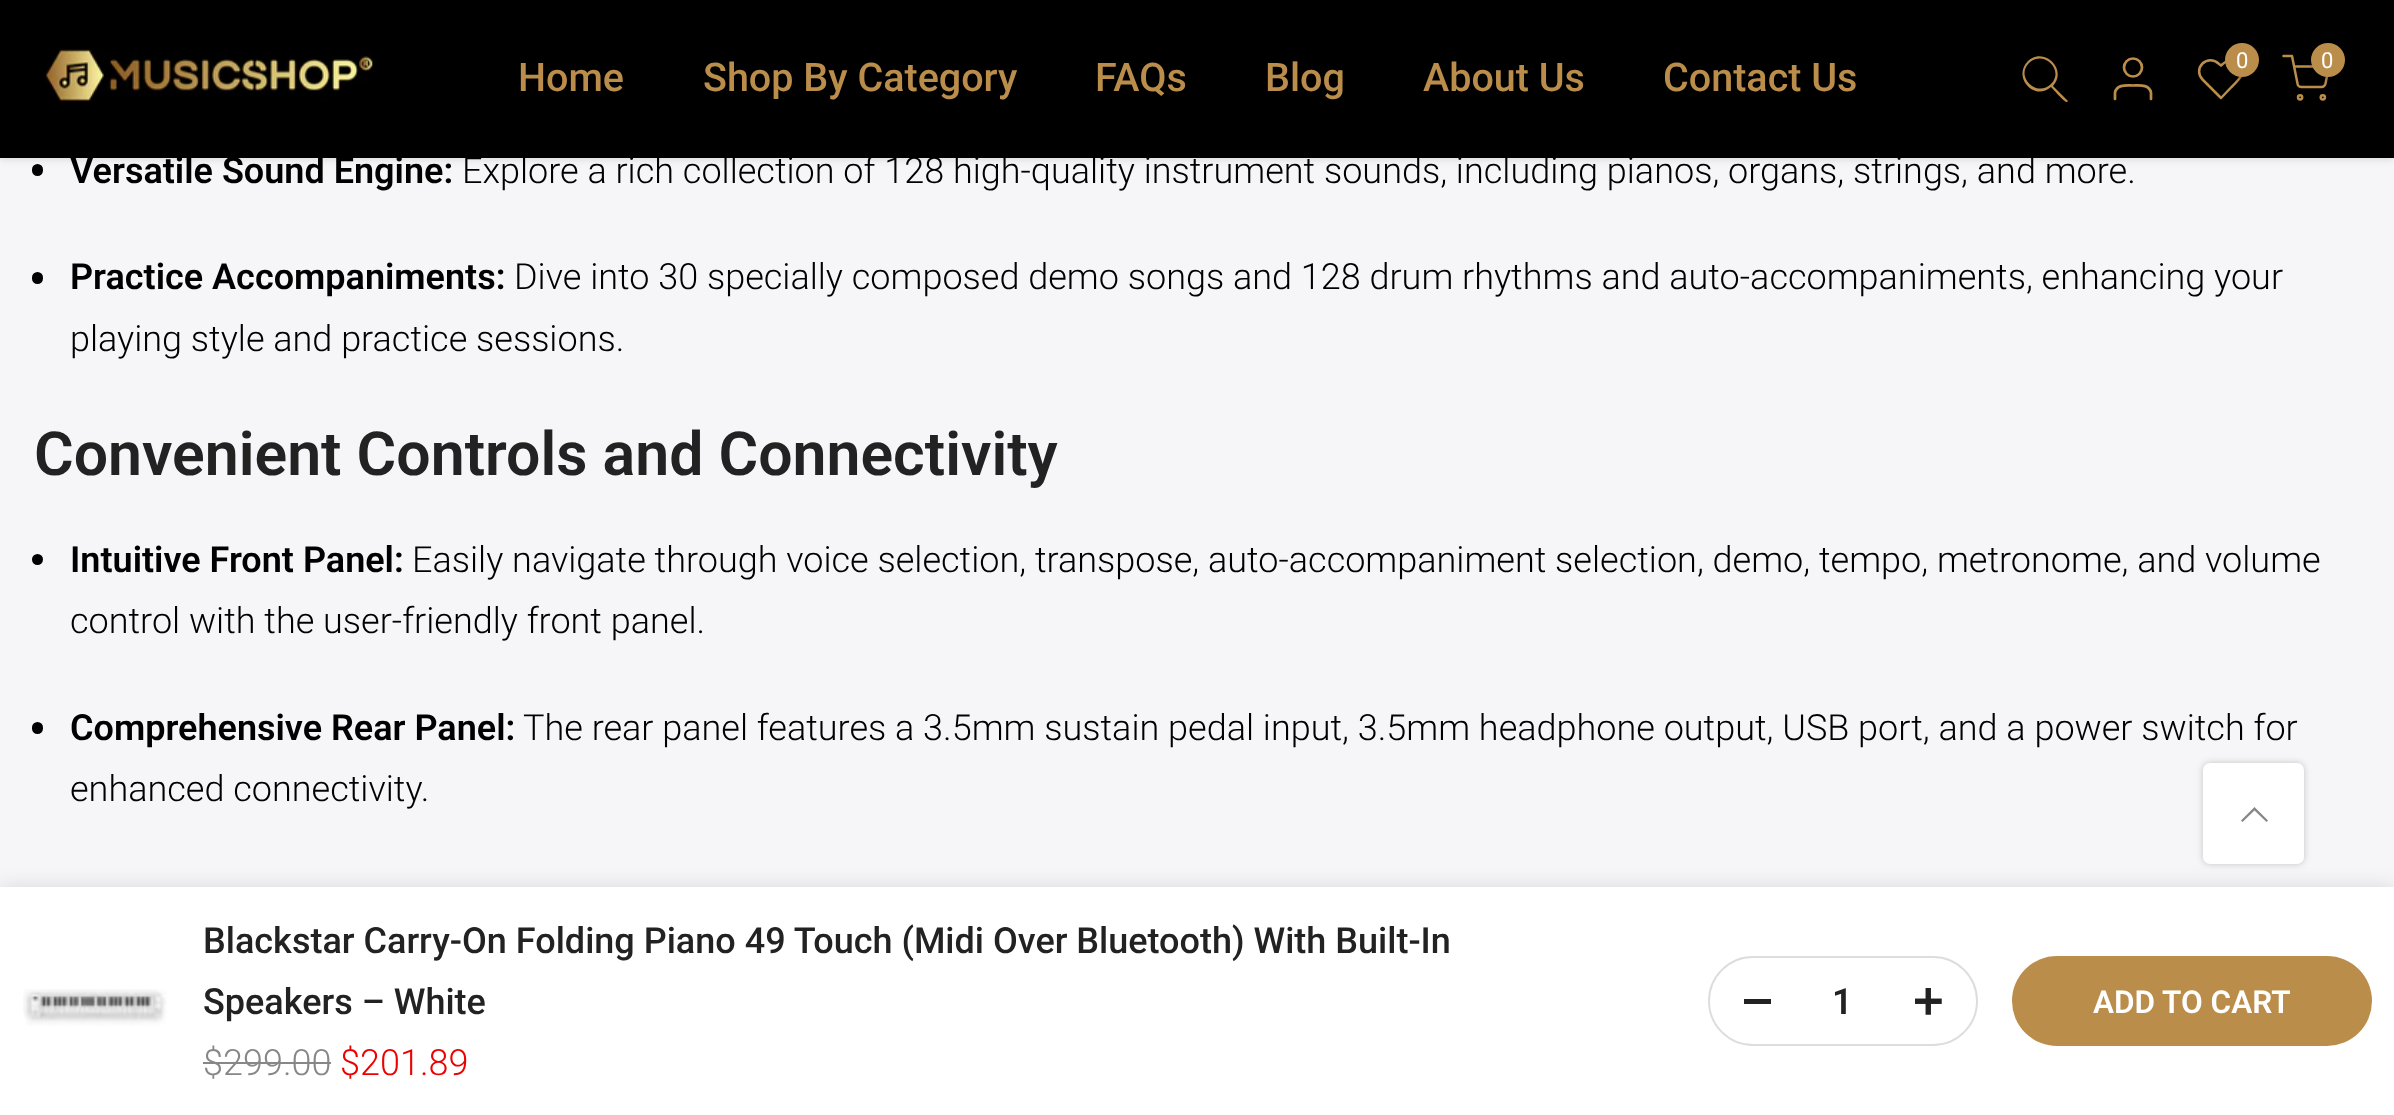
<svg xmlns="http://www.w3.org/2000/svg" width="2394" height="1115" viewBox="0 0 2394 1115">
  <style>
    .t1 { font: 500 39.5px Roboto; fill: #bb8d4b; }
    .t2 { font: 22px Roboto; fill: #fff; }
    .t3 { font: 600 36px Roboto; fill: #000; }
    .t4 { font: 300 36px Roboto; fill: #000; }
    .t5 { font: 600 60.75px Roboto; fill: #222; }
    .t6 { font: 500 36px Roboto; fill: #222; }
    .t7 { font: 300 36px Roboto; fill: #878787; }
    .t8 { font: 300 36px Roboto; fill: #ec0101; }
    .t9 { font: 600 36px Roboto; fill: #222; }
    .t10 { font: 600 31.5px Roboto; fill: #fff; }
  </style>
  <rect width="100%" height="100%" fill="#f6f6f8"/>
  <rect x="32" y="164" width="11" height="12" rx="5.5" fill="#000"/>
  <rect x="0" y="2" width="2394" height="158" fill="#0000001a" filter="blur(3.5px)"/>
  <rect x="0" y="0" width="2394" height="158" fill="#000"/>
  <image x="45" y="49" width="329" height="53" href="images/1.png"/>
  <text x="518" y="91" class="t1">Home</text>
  <text x="703" y="91" class="t1">Shop By Category</text>
  <text x="1095" y="91" class="t1">FAQs</text>
  <text x="1265" y="91" class="t1">Blog</text>
  <text x="1423" y="91" class="t1">About Us</text>
  <text x="1663" y="91" class="t1">Contact Us</text>
  <path d="M2051 84C2037 98 2015 77 2029 63C2043 49 2065 70 2051 84ZM2051 87C2034 102 2012 77 2028 61C2044 46 2068 69 2053 86L2068 101L2067 102C2065 103 2053 89 2051 87Z" fill="#bb8d4b" fill-rule="evenodd"/>
  <circle cx="2133" cy="67.5" r="9" fill="none" stroke="#bb8d4b" stroke-width="2.7"/>
  <path d="M2151 99V92.5C2149 84 2139.5 85.5 2133 85.5C2126.5 85.5 2117 84 2115 92.5V99" fill="none" stroke="#bb8d4b" stroke-width="2.7" stroke-linecap="round" stroke-linejoin="round"/>
  <path d="M2239 63.5C2233 57.5 2226 60.5 2221 65.5L2218.5 63.5C2214 59 2207 59 2202.5 63.5C2198 68 2198 75 2202.5 79.5L2221 98L2231.5 87C2237.5 81 2248 72.5 2239 63.5Z" fill="none" stroke="#bb8d4b" stroke-width="2.5" stroke-linecap="round" stroke-linejoin="round"/>
  <rect x="2228" y="45" width="33" height="34" rx="16.5" fill="#0000004d" filter="blur(3.5px)"/>
  <circle cx="2242" cy="60" r="17" fill="#bb8d4b"/>
  <text x="2236" y="68" class="t2">0</text>
  <path d="M2283.5 56H2292L2297.5 83.5C2297.5 85.5 2299.5 87 2301.5 87H2321.5C2323.5 87 2325 85.5 2325.5 83.5L2329 66.5H2294" fill="none" stroke="#bb8d4b" stroke-width="2.5" stroke-linecap="round" stroke-linejoin="round"/>
  <rect x="2313" y="45" width="34" height="34" rx="17" fill="#0000004d" filter="blur(3.5px)"/>
  <circle cx="2328" cy="60" r="17" fill="#bb8d4b"/>
  <text x="2321" y="68" class="t2">0</text>
  <circle cx="2300.1" cy="97.3" r="2.1" fill="none" stroke="#bb8d4b" stroke-width="2.5"/>
  <circle cx="2322.8" cy="97.3" r="2.1" fill="none" stroke="#bb8d4b" stroke-width="2.5"/>
  <text x="70" y="183" class="t3">Versatile Sound Engine:</text>
  <text x="462" y="183" class="t4">Explore a rich collection of 128 high-quality instrument sounds, including pianos, organs, strings, and more.</text>
  <rect x="32" y="272" width="11" height="12" rx="5.5" fill="#000"/>
  <text x="70" y="289" class="t3">Practice Accompaniments:</text>
  <text x="514" y="289" class="t4">Dive into 30 specially composed demo songs and 128 drum rhythms and auto-accompaniments, enhancing your</text>
  <text x="70" y="351" class="t4">playing style and practice sessions.</text>
  <text x="34" y="475" class="t5">Convenient Controls and Connectivity</text>
  <circle cx="37.5" cy="559.5" r="5.5" fill="#000"/>
  <text x="70" y="572" class="t3">Intuitive Front Panel:</text>
  <text x="412" y="572" class="t4">Easily navigate through voice selection, transpose, auto-accompaniment selection, demo, tempo, metronome, and volume</text>
  <text x="70" y="633" class="t4">control with the user-friendly front panel.</text>
  <rect x="32" y="722" width="11" height="12" rx="5.5" fill="#000"/>
  <text x="70" y="740" class="t3">Comprehensive Rear Panel:</text>
  <text x="523" y="740" class="t4">The rear panel features a 3.5mm sustain pedal input, 3.5mm headphone output, USB port, and a power switch for</text>
  <text x="70" y="801" class="t4">enhanced connectivity.</text>
  <rect x="2203" y="763" width="101" height="101" rx="7" fill="#00000033" filter="blur(3.5px)"/>
  <rect x="0" y="887" width="2394" height="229" fill="#0000001f" filter="blur(10px)"/>
  <rect x="2203" y="763" width="101" height="101" rx="7" fill="#fff"/>
  <path d="M2256 808.5L2254.5 807L2241 820.5L2242.5 822L2254.5 810.5L2266.5 822L2268 820.5L2261 813.5Z" fill="#878787"/>
  <rect x="0" y="887" width="2394" height="228" fill="#fff"/>
  <image x="23" y="989" width="144" height="37" href="images/2.png"/>
  <text x="203" y="953" class="t6">Blackstar Carry-On Folding Piano 49 Touch (Midi Over Bluetooth) With Built-In</text>
  <text x="203" y="1014" class="t6">Speakers – White</text>
  <text x="203" y="1075" class="t7">$299.00</text>
  <rect x="203" y="1062" width="128" height="2" fill="#878787"/>
  <text x="340" y="1075" class="t8">$201.89</text>
  <rect x="1709" y="957" width="268" height="88" rx="44" fill="none" stroke="#ddd" stroke-width="2"/>
  <rect x="1744" y="999" width="27" height="5" fill="#222"/>
  <text x="1832" y="1014" class="t9">1</text>
  <image x="1915" y="988" width="27" height="27" href="images/3.png"/>
  <rect x="2012" y="956" width="360" height="90" rx="45" fill="#bb8d4b"/>
  <text x="2093" y="1013" class="t10">ADD TO CART</text>
</svg>
